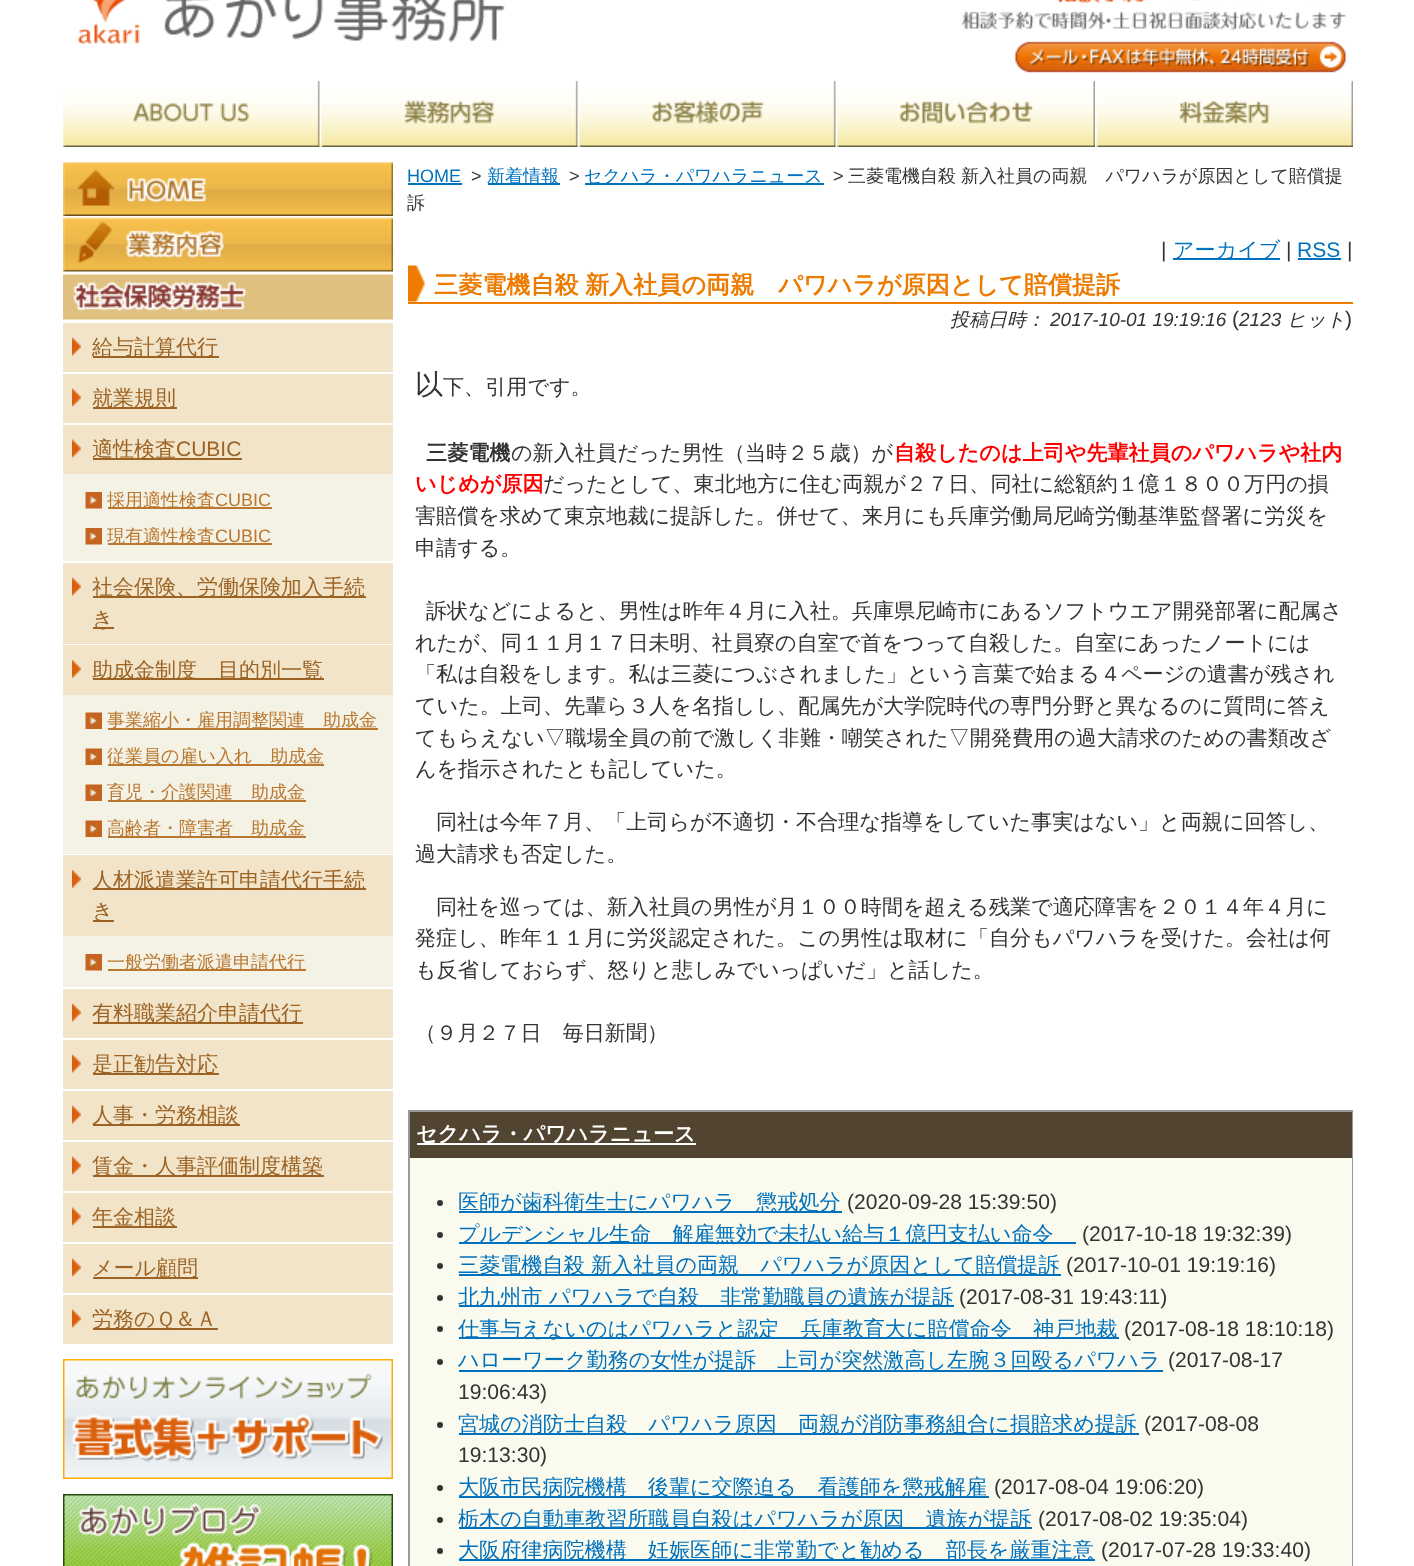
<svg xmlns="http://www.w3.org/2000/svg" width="1414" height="1566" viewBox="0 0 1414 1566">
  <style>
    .t1 { font: 500 21px WenQuanYi Zen Hei; fill: #9d6324; }
    .t2 { font: 21px Liberation Sans; fill: #9d6324; }
    .t3 { font: 500 18px WenQuanYi Zen Hei; fill: #ba7730; }
    .t4 { font: 18px Liberation Sans; fill: #ba7730; }
    .t5 { font: 18px Liberation Sans; fill: #0071bc; }
    .t6 { font: 18px Liberation Sans; fill: #333; }
    .t7 { font: 500 18px WenQuanYi Zen Hei; fill: #0071bc; }
    .t8 { font: 500 18px WenQuanYi Zen Hei; fill: #333; }
    .t9 { font: 21.1px Liberation Sans; fill: #333; }
    .t10 { font: 500 21.1px WenQuanYi Zen Hei; fill: #0071bc; }
    .t11 { font: 21.1px Liberation Sans; fill: #0071bc; }
    .t12 { font: bold 24.1px WenQuanYi Zen Hei; fill: #ed7b00; }
    .t13 { font: italic 500 19px WenQuanYi Zen Hei; fill: #333; }
    .t14 { font: italic 19px Liberation Sans; fill: #333; }
    .t15 { font: 100 28px Noto Sans; fill: #333; }
    .t16 { font: 500 21.1px WenQuanYi Zen Hei; fill: #333; }
    .t17 { font: bold 21.1px WenQuanYi Zen Hei; fill: #333; }
    .t18 { font: bold 21.1px WenQuanYi Zen Hei; fill: #f00; }
    .t19 { font: bold 21.1px WenQuanYi Zen Hei; fill: #fff; }
  </style>
  <rect width="100%" height="100%" fill="#fff"/>
  <image x="77" y="0" width="428" height="44" href="images/1.png"/>
  <image x="961" y="0" width="385" height="73" href="images/2.png"/>
  <image x="63" y="80" width="257" height="67" href="images/3.png"/>
  <image x="321" y="80" width="257" height="67" href="images/4.png"/>
  <image x="579" y="80" width="257" height="67" href="images/5.png"/>
  <image x="837" y="80" width="258" height="67" href="images/6.png"/>
  <image x="1096" y="80" width="257" height="67" href="images/7.png"/>
  <image x="63" y="162" width="330" height="54" href="images/8.png"/>
  <image x="63" y="217" width="330" height="55" href="images/9.png"/>
  <image x="63" y="274" width="330" height="46" href="images/10.png"/>
  <rect x="63" y="323" width="330" height="49" fill="#f1e4c9"/>
  <image x="72" y="337" width="9" height="19" href="images/11.png"/>
  <rect x="93" y="356" width="126" height="2" fill="#9d6324"/>
  <text x="92" y="354" class="t1">給与計算代行</text>
  <rect x="63" y="374" width="330" height="49" fill="#f1e4c9"/>
  <image x="72" y="388" width="9" height="19" href="images/11.png"/>
  <rect x="93" y="407" width="84" height="2" fill="#9d6324"/>
  <text x="92" y="405" class="t1">就業規則</text>
  <rect x="63" y="425" width="330" height="49" fill="#f1e4c9"/>
  <image x="72" y="439" width="9" height="19" href="images/11.png"/>
  <rect x="93" y="458" width="149" height="2" fill="#9d6324"/>
  <text x="92" y="456" class="t1">適性検査</text>
  <text x="176" y="456" class="t2">CUBIC</text>
  <rect x="63" y="474" width="330" height="87" fill="#f4f2e5"/>
  <image x="85" y="492" width="17" height="17" href="images/12.png"/>
  <rect x="108" y="507" width="164" height="2" fill="#ba7730"/>
  <text x="107" y="506" class="t3">採用適性検査</text>
  <text x="215" y="506" class="t4">CUBIC</text>
  <image x="85" y="528" width="17" height="17" href="images/12.png"/>
  <rect x="108" y="543" width="164" height="2" fill="#ba7730"/>
  <text x="107" y="542" class="t3">現有適性検査</text>
  <text x="215" y="542" class="t4">CUBIC</text>
  <rect x="63" y="563" width="330" height="81" fill="#f1e4c9"/>
  <image x="72" y="577" width="9" height="19" href="images/11.png"/>
  <rect x="93" y="596" width="273" height="2" fill="#9d6324"/>
  <text x="92" y="594" class="t1">社会保険、労働保険加入手続</text>
  <rect x="93" y="627" width="21" height="2" fill="#9d6324"/>
  <text x="92" y="626" class="t1">き</text>
  <rect x="63" y="645" width="330" height="50" fill="#f1e4c9"/>
  <image x="72" y="660" width="9" height="18" href="images/13.png"/>
  <rect x="93" y="678" width="231" height="2" fill="#9d6324"/>
  <text x="92" y="677" class="t1">助成金制度　目的別一覧</text>
  <rect x="63" y="695" width="330" height="159" fill="#f4f2e5"/>
  <image x="85" y="712" width="17" height="17" href="images/14.png"/>
  <rect x="108" y="728" width="270" height="2" fill="#ba7730"/>
  <text x="107" y="726" class="t3">事業縮小・雇用調整関連　助成金</text>
  <image x="85" y="748" width="17" height="17" href="images/14.png"/>
  <rect x="108" y="764" width="216" height="2" fill="#ba7730"/>
  <text x="107" y="762" class="t3">従業員の雇い入れ　助成金</text>
  <image x="85" y="784" width="17" height="17" href="images/14.png"/>
  <rect x="108" y="800" width="198" height="2" fill="#ba7730"/>
  <text x="107" y="798" class="t3">育児・介護関連　助成金</text>
  <image x="85" y="820" width="17" height="17" href="images/14.png"/>
  <rect x="108" y="836" width="198" height="2" fill="#ba7730"/>
  <text x="107" y="834" class="t3">高齢者・障害者　助成金</text>
  <rect x="63" y="855" width="330" height="81" fill="#f1e4c9"/>
  <image x="72" y="870" width="9" height="18" href="images/13.png"/>
  <rect x="93" y="888" width="273" height="2" fill="#9d6324"/>
  <text x="92" y="887" class="t1">人材派遣業許可申請代行手続</text>
  <rect x="93" y="920" width="21" height="2" fill="#9d6324"/>
  <text x="92" y="918" class="t1">き</text>
  <rect x="63" y="936" width="330" height="51" fill="#f4f2e5"/>
  <image x="85" y="954" width="17" height="17" href="images/12.png"/>
  <rect x="108" y="969" width="198" height="2" fill="#ba7730"/>
  <text x="107" y="968" class="t3">一般労働者派遣申請代行</text>
  <rect x="63" y="989" width="330" height="49" fill="#f1e4c9"/>
  <image x="72" y="1003" width="9" height="19" href="images/11.png"/>
  <rect x="93" y="1022" width="210" height="2" fill="#9d6324"/>
  <text x="92" y="1020" class="t1">有料職業紹介申請代行</text>
  <rect x="63" y="1040" width="330" height="49" fill="#f1e4c9"/>
  <image x="72" y="1054" width="9" height="19" href="images/11.png"/>
  <rect x="93" y="1073" width="126" height="2" fill="#9d6324"/>
  <text x="92" y="1071" class="t1">是正勧告対応</text>
  <rect x="63" y="1091" width="330" height="49" fill="#f1e4c9"/>
  <image x="72" y="1105" width="9" height="19" href="images/11.png"/>
  <rect x="93" y="1124" width="147" height="2" fill="#9d6324"/>
  <text x="92" y="1122" class="t1">人事・労務相談</text>
  <rect x="63" y="1142" width="330" height="49" fill="#f1e4c9"/>
  <image x="72" y="1156" width="9" height="19" href="images/11.png"/>
  <rect x="93" y="1175" width="231" height="2" fill="#9d6324"/>
  <text x="92" y="1173" class="t1">賃金・人事評価制度構築</text>
  <rect x="63" y="1193" width="330" height="49" fill="#f1e4c9"/>
  <image x="72" y="1207" width="9" height="19" href="images/11.png"/>
  <rect x="93" y="1226" width="84" height="2" fill="#9d6324"/>
  <text x="92" y="1224" class="t1">年金相談</text>
  <rect x="63" y="1244" width="330" height="49" fill="#f1e4c9"/>
  <image x="72" y="1258" width="9" height="19" href="images/11.png"/>
  <rect x="93" y="1277" width="105" height="2" fill="#9d6324"/>
  <text x="92" y="1275" class="t1">メール顧問</text>
  <rect x="63" y="1295" width="330" height="49" fill="#f1e4c9"/>
  <image x="72" y="1309" width="9" height="19" href="images/11.png"/>
  <rect x="93" y="1328" width="125" height="2" fill="#9d6324"/>
  <text x="92" y="1326" class="t1">労務のＱ＆Ａ</text>
  <image x="63" y="1359" width="330" height="120" href="images/15.png"/>
  <image x="63" y="1494" width="330" height="72" href="images/16.png"/>
  <text x="407" y="182" class="t5">HOME</text>
  <rect x="408" y="183" width="54" height="2" fill="#0071bc"/>
  <text x="471" y="182" class="t6">&gt;</text>
  <rect x="488" y="183" width="72" height="2" fill="#0071bc"/>
  <text x="487" y="182" class="t7">新着情報</text>
  <text x="569" y="182" class="t6">&gt;</text>
  <rect x="585" y="183" width="239" height="2" fill="#0071bc"/>
  <text x="584" y="182" class="t7">セクハラ・パワハラニュース</text>
  <text x="833" y="182" class="t6">&gt;</text>
  <text x="848" y="182" class="t8">三菱電機自殺</text>
  <text x="961" y="182" class="t8">新入社員の両親　パワハラが原因として賠償提</text>
  <text x="407" y="209" class="t8">訴</text>
  <text x="1161" y="257" class="t9">|</text>
  <rect x="1173" y="258" width="107" height="2" fill="#0071bc"/>
  <text x="1173" y="257" class="t10">アーカイブ</text>
  <text x="1286" y="257" class="t9">|</text>
  <text x="1297" y="257" class="t11">RSS</text>
  <rect x="1298" y="258" width="43" height="2" fill="#0071bc"/>
  <text x="1347" y="257" class="t9">|</text>
  <image x="408" y="265" width="17" height="37" href="images/17.png"/>
  <rect x="408" y="302" width="945" height="2" fill="#ed7b00"/>
  <text x="434" y="293" class="t12">三菱電機自殺</text>
  <text x="585" y="293" class="t12">新入社員の両親　パワハラが原因として賠償提訴</text>
  <text x="950" y="326" class="t13">投稿日時：</text>
  <text x="1050" y="326" class="t14">2017-10-01 19:19:16</text>
  <text x="1232" y="326" class="t9">(</text>
  <text x="1239" y="326" class="t14">2123</text>
  <text x="1287" y="326" class="t13">ヒット</text>
  <text x="1345" y="326" class="t9">)</text>
  <text x="415" y="394" class="t15">以</text>
  <text x="443" y="394" class="t16">下、引用です。</text>
  <text x="426" y="460" class="t17">三菱電機</text>
  <text x="511" y="460" class="t16">の新入社員だった男性（当時２５歳）が</text>
  <text x="894" y="460" class="t18">自殺したのは上司や先輩社員のパワハラや社内</text>
  <text x="415" y="491" class="t18">いじめが原因</text>
  <text x="543" y="491" class="t16">だったとして、東北地方に住む両親が２７日、同社に総額約１億１８００万円の損</text>
  <text x="415" y="523" class="t16">害賠償を求めて東京地裁に提訴した。併せて、来月にも兵庫労働局尼崎労働基準監督署に労災を</text>
  <text x="415" y="555" class="t16">申請する。</text>
  <text x="426" y="618" class="t16">訴状などによると、男性は昨年４月に入社。兵庫県尼崎市にあるソフトウエア開発部署に配属さ</text>
  <text x="415" y="650" class="t16">れたが、同１１月１７日未明、社員寮の自室で首をつって自殺した。自室にあったノートには</text>
  <text x="415" y="681" class="t16">「私は自殺をします。私は三菱につぶされました」という言葉で始まる４ページの遺書が残され</text>
  <text x="415" y="713" class="t16">ていた。上司、先輩ら３人を名指しし、配属先が大学院時代の専門分野と異なるのに質問に答え</text>
  <text x="415" y="745" class="t16">てもらえない▽職場全員の前で激しく非難・嘲笑された▽開発費用の過大請求のための書類改ざ</text>
  <text x="415" y="776" class="t16">んを指示されたとも記していた。</text>
  <text x="436" y="829" class="t16">同社は今年７月、「上司らが不適切・不合理な指導をしていた事実はない」と両親に回答し、</text>
  <text x="415" y="861" class="t16">過大請求も否定した。</text>
  <text x="436" y="914" class="t16">同社を巡っては、新入社員の男性が月１００時間を超える残業で適応障害を２０１４年４月に</text>
  <text x="415" y="945" class="t16">発症し、昨年１１月に労災認定された。この男性は取材に「自分もパワハラを受けた。会社は何</text>
  <text x="415" y="977" class="t16">も反省しておらず、怒りと悲しみでいっぱいだ」と話した。</text>
  <text x="415" y="1040" class="t16">（９月２７日　毎日新聞）</text>
  <rect x="409" y="1111" width="943" height="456" fill="none" stroke="#999" stroke-width="2"/>
  <rect x="410" y="1112" width="942" height="46" fill="#514431"/>
  <rect x="417" y="1143" width="279" height="2" fill="#fff"/>
  <text x="416" y="1141" class="t19">セクハラ・パワハラニュース</text>
  <rect x="410" y="1158" width="942" height="408" fill="#fafaee"/>
  <circle cx="440" cy="1203" r="3" fill="#333"/>
  <rect x="459" y="1211" width="383" height="2" fill="#0071bc"/>
  <text x="458" y="1209" class="t10">医師が歯科衛生士にパワハラ　懲戒処分</text>
  <text x="847" y="1209" class="t9">(2020-09-28 15:39:50)</text>
  <circle cx="440" cy="1235" r="3" fill="#333"/>
  <rect x="459" y="1242" width="617" height="2" fill="#0071bc"/>
  <text x="458" y="1241" class="t10">プルデンシャル生命　解雇無効で未払い給与１億円支払い命令</text>
  <text x="1082" y="1241" class="t9">(2017-10-18 19:32:39)</text>
  <circle cx="440" cy="1266" r="3" fill="#333"/>
  <rect x="459" y="1274" width="602" height="2" fill="#0071bc"/>
  <text x="458" y="1272" class="t10">三菱電機自殺</text>
  <text x="591" y="1272" class="t10">新入社員の両親　パワハラが原因として賠償提訴</text>
  <text x="1066" y="1272" class="t9">(2017-10-01 19:19:16)</text>
  <circle cx="440" cy="1298" r="3" fill="#333"/>
  <rect x="459" y="1305" width="495" height="2" fill="#0071bc"/>
  <text x="458" y="1304" class="t10">北九州市</text>
  <text x="549" y="1304" class="t10">パワハラで自殺　非常勤職員の遺族が提訴</text>
  <text x="959" y="1304" class="t9">(2017-08-31 19:43:11)</text>
  <circle cx="440" cy="1329" r="3" fill="#333"/>
  <rect x="459" y="1337" width="660" height="2" fill="#0071bc"/>
  <text x="458" y="1336" class="t10">仕事与えないのはパワハラと認定　兵庫教育大に賠償命令　神戸地裁</text>
  <text x="1124" y="1336" class="t9">(2017-08-18 18:10:18)</text>
  <circle cx="440" cy="1362" r="3" fill="#333"/>
  <rect x="459" y="1370" width="704" height="2" fill="#0071bc"/>
  <text x="458" y="1367" class="t10">ハローワーク勤務の女性が提訴　上司が突然激高し左腕３回殴るパワハラ</text>
  <text x="1168" y="1367" class="t9">(2017-08-17</text>
  <text x="458" y="1399" class="t9">19:06:43)</text>
  <circle cx="440" cy="1425" r="3" fill="#333"/>
  <rect x="459" y="1433" width="680" height="2" fill="#0071bc"/>
  <text x="458" y="1431" class="t10">宮城の消防士自殺　パワハラ原因　両親が消防事務組合に損賠求め提訴</text>
  <text x="1144" y="1431" class="t9">(2017-08-08</text>
  <text x="458" y="1462" class="t9">19:13:30)</text>
  <circle cx="440" cy="1488" r="3" fill="#333"/>
  <rect x="459" y="1496" width="530" height="2" fill="#0071bc"/>
  <text x="458" y="1494" class="t10">大阪市民病院機構　後輩に交際迫る　看護師を懲戒解雇</text>
  <text x="994" y="1494" class="t9">(2017-08-04 19:06:20)</text>
  <circle cx="440" cy="1520" r="3" fill="#333"/>
  <rect x="459" y="1527" width="573" height="2" fill="#0071bc"/>
  <text x="458" y="1526" class="t10">栃木の自動車教習所職員自殺はパワハラが原因　遺族が提訴</text>
  <text x="1038" y="1526" class="t9">(2017-08-02 19:35:04)</text>
  <circle cx="440" cy="1551" r="3" fill="#333"/>
  <rect x="459" y="1559" width="636" height="2" fill="#0071bc"/>
  <text x="458" y="1557" class="t10">大阪府律病院機構　妊娠医師に非常勤でと勧める　部長を厳重注意</text>
  <text x="1101" y="1557" class="t9">(2017-07-28 19:33:40)</text>
</svg>
